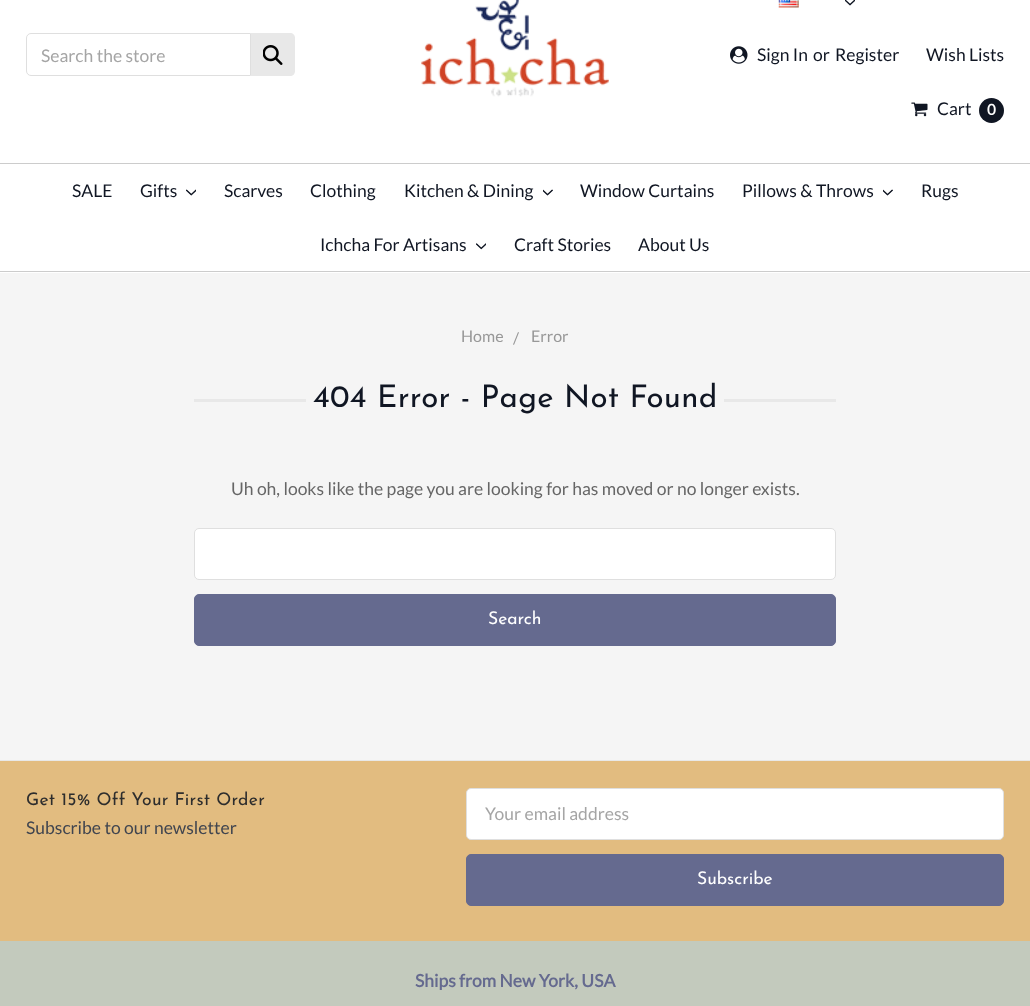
<svg xmlns="http://www.w3.org/2000/svg" width="1030" height="1006" viewBox="0 0 1030 1006">
  <style>
    .t1 { font: 17.5px Lato; fill: #a5a5a5; }
    .t2 { font: 17.5px Lato; fill: #101623; }
    .t3 { font: bold 15px Lato; fill: #fff; }
    .t4 { font: 16px Lato; fill: #989898; }
    .t5 { font: 100 31.25px Josefin Sans; letter-spacing: 0.3px; fill: #101623; }
    .t6 { font: 17.5px Lato; fill: #666; }
    .t7 { font: 100 17.5px Josefin Sans; fill: #fff; }
    .t8 { font: 100 17.5px Josefin Sans; letter-spacing: 0.3px; fill: #2d2d2d; }
    .t9 { font: 17.5px Lato; fill: #40454f; }
    .t10 { font: bold 17.5px Lato; fill: #656a8f; }
  </style>
  <rect width="100%" height="100%" fill="#f5f5f5"/>
  <rect x="0" y="0" width="1030" height="273" fill="#fff"/>
  <path d="M31 33.5H250.5V75.5H31C28.5 75.5 26.5 73.5 26.5 71V38C26.5 35.5 28.5 33.5 31 33.5Z" fill="none" stroke="#dfdfdf"/>
  <text x="41" y="62" class="t1">Search the store</text>
  <path d="M251 33H290C293 33 295 35 295 38V71C295 74 293 76 290 76H251Z" fill="#e8e8e8"/>
  <image x="263" y="45" width="20" height="20" href="images/1.png"/>
  <image x="421" y="0" width="188" height="97" href="images/2.png"/>
  <image x="778" y="0" width="21" height="8" href="images/3.png"/>
  <image x="845" y="0" width="10" height="6" href="images/4.png"/>
  <image x="730" y="46" width="18" height="18" href="images/5.png"/>
  <text x="757" y="61" class="t2">Sign In</text>
  <text x="813" y="61" class="t2">or</text>
  <text x="835" y="61" class="t2">Register</text>
  <text x="926" y="61" class="t2">Wish Lists</text>
  <image x="911" y="102" width="17" height="15" href="images/6.png"/>
  <text x="937" y="115" class="t2">Cart</text>
  <circle cx="991.5" cy="110.5" r="12.5" fill="#101623"/>
  <text x="987" y="115" class="t3">0</text>
  <rect x="0" y="163" width="1030" height="1" fill="#ccc"/>
  <rect x="0" y="271" width="1030" height="1" fill="#ccc"/>
  <text x="72" y="197" class="t2">SALE</text>
  <text x="140" y="197" class="t2">Gifts</text>
  <image x="186" y="189" width="10" height="7" href="images/7.png"/>
  <text x="224" y="197" class="t2">Scarves</text>
  <text x="310" y="197" class="t2">Clothing</text>
  <text x="404" y="197" class="t2">Kitchen &amp; Dining</text>
  <image x="543" y="189" width="10" height="7" href="images/8.png"/>
  <text x="580" y="197" class="t2">Window Curtains</text>
  <text x="742" y="197" class="t2">Pillows &amp; Throws</text>
  <image x="883" y="189" width="10" height="7" href="images/8.png"/>
  <text x="921" y="197" class="t2">Rugs</text>
  <text x="320" y="251" class="t2">Ichcha For Artisans</text>
  <image x="476" y="243" width="10" height="7" href="images/9.png"/>
  <text x="514" y="251" class="t2">Craft Stories</text>
  <text x="638" y="251" class="t2">About Us</text>
  <text x="461" y="342" class="t4">Home</text>
  <text x="513" y="344" class="t4">/</text>
  <text x="531" y="342" class="t4">Error</text>
  <rect x="194" y="399" width="112" height="3" fill="#e8e8e8"/>
  <text x="313" y="407" class="t5">404 Error - Page Not Found</text>
  <rect x="724" y="399" width="112" height="3" fill="#e8e8e8"/>
  <text x="231" y="495" class="t6">Uh oh, looks like the page you are looking for has moved or no longer exists.</text>
  <rect x="194.5" y="528.5" width="641" height="51" rx="4.5" fill="#fff" stroke="#dfdfdf"/>
  <rect x="194.5" y="594.5" width="641" height="51" rx="4.5" fill="#656a8f" stroke="#656a8f"/>
  <text x="488" y="624" class="t7">Search</text>
  <rect x="0" y="760" width="1030" height="1" fill="#e8e8e8"/>
  <rect x="0" y="761" width="1030" height="180" fill="#e2bc80"/>
  <text x="26" y="805" class="t8">Get 15% Off Your First Order</text>
  <text x="26" y="834" class="t9">Subscribe to our newsletter</text>
  <rect x="466.5" y="788.5" width="537" height="51" rx="4.5" fill="#fff" stroke="#dfdfdf"/>
  <text x="485" y="820" class="t1">Your email address</text>
  <rect x="466.5" y="854.5" width="537" height="51" rx="4.5" fill="#656a8f" stroke="#656a8f"/>
  <text x="697" y="884" class="t7">Subscribe</text>
  <rect x="0" y="941" width="1030" height="65" fill="#c3cabd"/>
  <text x="415" y="987" class="t10">Ships from New York, USA</text>
</svg>
